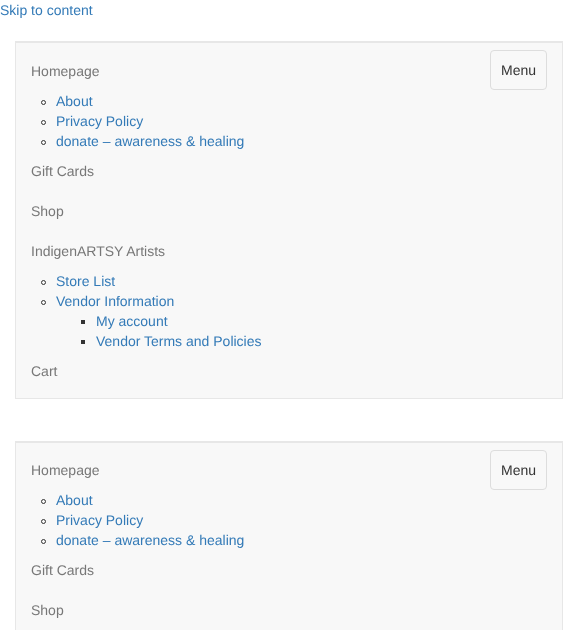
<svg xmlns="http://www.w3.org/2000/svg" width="578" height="630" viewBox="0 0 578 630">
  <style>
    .t1 { font: 14px Liberation Sans; fill: #337ab7; }
    .t2 { font: 14px Liberation Sans; fill: #777; }
    .t3 { font: 14px Liberation Sans; fill: #333; }
  </style>
  <rect width="100%" height="100%" fill="#fff"/>
  <text x="0" y="15" class="t1">Skip to content</text>
  <rect x="16" y="43" width="546" height="355" fill="#f8f8f8"/>
  <rect x="15.5" y="41.5" width="547" height="357" fill="none" stroke="#e7e7e7"/>
  <rect x="16" y="42" width="546" height="1" fill="#e7e7e7"/>
  <text x="31" y="76" class="t2">Homepage</text>
  <circle cx="43.5" cy="102.5" r="2" fill="none" stroke="#333"/>
  <text x="56" y="106" class="t1">About</text>
  <circle cx="43.5" cy="122.5" r="2" fill="none" stroke="#333"/>
  <text x="56" y="126" class="t1">Privacy Policy</text>
  <circle cx="43.5" cy="142.5" r="2" fill="none" stroke="#333"/>
  <text x="56" y="146" class="t1">donate – awareness &amp; healing</text>
  <text x="31" y="176" class="t2">Gift Cards</text>
  <text x="31" y="216" class="t2">Shop</text>
  <text x="31" y="256" class="t2">IndigenARTSY Artists</text>
  <circle cx="43.5" cy="282.5" r="2" fill="none" stroke="#333"/>
  <text x="56" y="286" class="t1">Store List</text>
  <circle cx="43.5" cy="302.5" r="2" fill="none" stroke="#333"/>
  <text x="56" y="306" class="t1">Vendor Information</text>
  <rect x="81" y="320" width="4" height="4" fill="#333"/>
  <text x="96" y="326" class="t1">My account</text>
  <rect x="81" y="340" width="4" height="4" fill="#333"/>
  <text x="96" y="346" class="t1">Vendor Terms and Policies</text>
  <text x="31" y="376" class="t2">Cart</text>
  <rect x="490.5" y="50.5" width="56" height="39" rx="3.5" fill="none" stroke="#ddd"/>
  <text x="501" y="75" class="t3">Menu</text>
  <rect x="16" y="443" width="546" height="187" fill="#f8f8f8"/>
  <rect x="15.5" y="441.5" width="547" height="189" fill="none" stroke="#e7e7e7"/>
  <rect x="16" y="442" width="546" height="1" fill="#e7e7e7"/>
  <text x="31" y="475" class="t2">Homepage</text>
  <circle cx="43.5" cy="501.5" r="2" fill="none" stroke="#333"/>
  <text x="56" y="505" class="t1">About</text>
  <circle cx="43.5" cy="521.5" r="2" fill="none" stroke="#333"/>
  <text x="56" y="525" class="t1">Privacy Policy</text>
  <circle cx="43.5" cy="541.5" r="2" fill="none" stroke="#333"/>
  <text x="56" y="545" class="t1">donate – awareness &amp; healing</text>
  <text x="31" y="575" class="t2">Gift Cards</text>
  <text x="31" y="615" class="t2">Shop</text>
  <rect x="490.5" y="450.5" width="56" height="39" rx="3.5" fill="none" stroke="#ddd"/>
  <text x="501" y="475" class="t3">Menu</text>
</svg>
